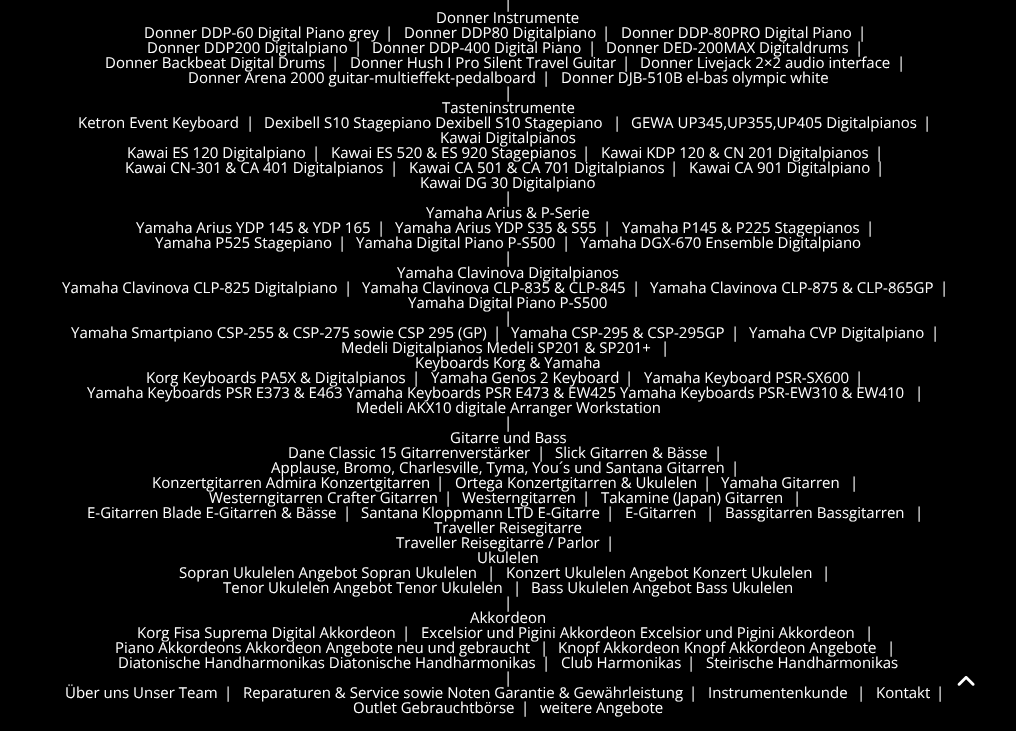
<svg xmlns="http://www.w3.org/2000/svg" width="1016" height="731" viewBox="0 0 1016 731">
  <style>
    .t1 { font: 15px Open Sans; fill: #fff; }
  </style>
  <rect width="100%" height="100%" fill="#000"/>
  <text x="504" y="8" class="t1">|</text>
  <text x="436" y="23" class="t1">Donner Instrumente</text>
  <text x="144" y="38" class="t1">Donner DDP-60 Digital Piano grey</text>
  <text x="385" y="38" class="t1">|</text>
  <text x="404" y="38" class="t1">Donner DDP80 Digitalpiano</text>
  <text x="602" y="38" class="t1">|</text>
  <text x="621" y="38" class="t1">Donner DDP-80PRO Digital Piano</text>
  <text x="858" y="38" class="t1">|</text>
  <text x="147" y="53" class="t1">Donner DDP200 Digitalpiano</text>
  <text x="354" y="53" class="t1">|</text>
  <text x="372" y="53" class="t1">Donner DDP-400 Digital Piano</text>
  <text x="588" y="53" class="t1">|</text>
  <text x="606" y="53" class="t1">Donner DED-200MAX Digitaldrums</text>
  <text x="855" y="53" class="t1">|</text>
  <text x="105" y="68" class="t1">Donner Backbeat Digital Drums</text>
  <text x="331" y="68" class="t1">|</text>
  <text x="350" y="68" class="t1">Donner Hush I Pro Silent Travel Guitar</text>
  <text x="622" y="68" class="t1">|</text>
  <text x="640" y="68" class="t1">Donner Livejack 2×2 audio interface</text>
  <text x="897" y="68" class="t1">|</text>
  <text x="188" y="83" class="t1">Donner Arena 2000 guitar-multieffekt-pedalboard</text>
  <text x="542" y="83" class="t1">|</text>
  <text x="561" y="83" class="t1">Donner DJB-510B el-bas olympic white</text>
  <text x="504" y="98" class="t1">|</text>
  <text x="442" y="113" class="t1">Tasteninstrumente</text>
  <text x="78" y="128" class="t1">Ketron Event Keyboard</text>
  <text x="246" y="128" class="t1">|</text>
  <text x="264" y="128" class="t1">Dexibell S10 Stagepiano Dexibell S10 Stagepiano</text>
  <text x="613" y="128" class="t1">|</text>
  <text x="631" y="128" class="t1">GEWA UP345,UP355,UP405 Digitalpianos</text>
  <text x="923" y="128" class="t1">|</text>
  <text x="440" y="143" class="t1">Kawai Digitalpianos</text>
  <text x="127" y="158" class="t1">Kawai ES 120 Digitalpiano</text>
  <text x="312" y="158" class="t1">|</text>
  <text x="331" y="158" class="t1">Kawai ES 520 &amp; ES 920 Stagepianos</text>
  <text x="582" y="158" class="t1">|</text>
  <text x="601" y="158" class="t1">Kawai KDP 120 &amp; CN 201 Digitalpianos</text>
  <text x="875" y="158" class="t1">|</text>
  <text x="125" y="173" class="t1">Kawai CN-301 &amp; CA 401 Digitalpianos</text>
  <text x="390" y="173" class="t1">|</text>
  <text x="409" y="173" class="t1">Kawai CA 501 &amp; CA 701 Digitalpianos</text>
  <text x="670" y="173" class="t1">|</text>
  <text x="689" y="173" class="t1">Kawai CA 901 Digitalpiano</text>
  <text x="876" y="173" class="t1">|</text>
  <text x="420" y="188" class="t1">Kawai DG 30 Digitalpiano</text>
  <text x="504" y="203" class="t1">|</text>
  <text x="426" y="218" class="t1">Yamaha Arius &amp; P-Serie</text>
  <text x="136" y="233" class="t1">Yamaha Arius YDP 145 &amp; YDP 165</text>
  <text x="377" y="233" class="t1">|</text>
  <text x="395" y="233" class="t1">Yamaha Arius YDP S35 &amp; S55</text>
  <text x="603" y="233" class="t1">|</text>
  <text x="622" y="233" class="t1">Yamaha P145 &amp; P225 Stagepianos</text>
  <text x="866" y="233" class="t1">|</text>
  <text x="155" y="248" class="t1">Yamaha P525 Stagepiano</text>
  <text x="338" y="248" class="t1">|</text>
  <text x="356" y="248" class="t1">Yamaha Digital Piano P-S500</text>
  <text x="562" y="248" class="t1">|</text>
  <text x="580" y="248" class="t1">Yamaha DGX-670 Ensemble Digitalpiano</text>
  <text x="504" y="263" class="t1">|</text>
  <text x="397" y="278" class="t1">Yamaha Clavinova Digitalpianos</text>
  <text x="62" y="293" class="t1">Yamaha Clavinova CLP-825 Digitalpiano</text>
  <text x="344" y="293" class="t1">|</text>
  <text x="362" y="293" class="t1">Yamaha Clavinova CLP-835 &amp; CLP-845</text>
  <text x="632" y="293" class="t1">|</text>
  <text x="650" y="293" class="t1">Yamaha Clavinova CLP-875 &amp; CLP-865GP</text>
  <text x="940" y="293" class="t1">|</text>
  <text x="408" y="308" class="t1">Yamaha Digital Piano P-S500</text>
  <text x="504" y="323" class="t1">|</text>
  <text x="71" y="338" class="t1">Yamaha Smartpiano CSP-255 &amp; CSP-275 sowie CSP 295 (GP)</text>
  <text x="493" y="338" class="t1">|</text>
  <text x="511" y="338" class="t1">Yamaha CSP-295 &amp; CSP-295GP</text>
  <text x="731" y="338" class="t1">|</text>
  <text x="749" y="338" class="t1">Yamaha CVP Digitalpiano</text>
  <text x="931" y="338" class="t1">|</text>
  <text x="341" y="353" class="t1">Medeli Digitalpianos Medeli SP201 &amp; SP201+</text>
  <text x="661" y="353" class="t1">|</text>
  <text x="415" y="368" class="t1">Keyboards Korg &amp; Yamaha</text>
  <text x="146" y="383" class="t1">Korg Keyboards PA5X &amp; Digitalpianos</text>
  <text x="412" y="383" class="t1">|</text>
  <text x="431" y="383" class="t1">Yamaha Genos 2 Keyboard</text>
  <text x="625" y="383" class="t1">|</text>
  <text x="644" y="383" class="t1">Yamaha Keyboard PSR-SX600</text>
  <text x="855" y="383" class="t1">|</text>
  <text x="87" y="398" class="t1">Yamaha Keyboards PSR E373 &amp; E463 Yamaha Keyboards PSR E473 &amp; EW425 Yamaha Keyboards PSR-EW310 &amp; EW410</text>
  <text x="915" y="398" class="t1">|</text>
  <text x="356" y="413" class="t1">Medeli AKX10 digitale Arranger Workstation</text>
  <text x="504" y="428" class="t1">|</text>
  <text x="450" y="443" class="t1">Gitarre und Bass</text>
  <text x="288" y="458" class="t1">Dane Classic 15 Gitarrenverstärker</text>
  <text x="537" y="458" class="t1">|</text>
  <text x="555" y="458" class="t1">Slick Gitarren &amp; Bässe</text>
  <text x="714" y="458" class="t1">|</text>
  <text x="271" y="473" class="t1">Applause, Bromo, Charlesville, Tyma, You´s und Santana Gitarren</text>
  <text x="731" y="473" class="t1">|</text>
  <text x="152" y="488" class="t1">Konzertgitarren Admira Konzertgitarren</text>
  <text x="436" y="488" class="t1">|</text>
  <text x="455" y="488" class="t1">Ortega Konzertgitarren &amp; Ukulelen</text>
  <text x="703" y="488" class="t1">|</text>
  <text x="721" y="488" class="t1">Yamaha Gitarren</text>
  <text x="850" y="488" class="t1">|</text>
  <text x="209" y="503" class="t1">Westerngitarren Crafter Gitarren</text>
  <text x="444" y="503" class="t1">|</text>
  <text x="462" y="503" class="t1">Westerngitarren</text>
  <text x="582" y="503" class="t1">|</text>
  <text x="601" y="503" class="t1">Takamine (Japan) Gitarren</text>
  <text x="793" y="503" class="t1">|</text>
  <text x="87" y="518" class="t1">E-Gitarren Blade E-Gitarren &amp; Bässe</text>
  <text x="343" y="518" class="t1">|</text>
  <text x="361" y="518" class="t1">Santana Kloppmann LTD E-Gitarre</text>
  <text x="606" y="518" class="t1">|</text>
  <text x="625" y="518" class="t1">E-Gitarren</text>
  <text x="706" y="518" class="t1">|</text>
  <text x="725" y="518" class="t1">Bassgitarren Bassgitarren</text>
  <text x="915" y="518" class="t1">|</text>
  <text x="434" y="533" class="t1">Traveller Reisegitarre</text>
  <text x="396" y="548" class="t1">Traveller Reisegitarre / Parlor</text>
  <text x="606" y="548" class="t1">|</text>
  <text x="477" y="563" class="t1">Ukulelen</text>
  <text x="179" y="578" class="t1">Sopran Ukulelen Angebot Sopran Ukulelen</text>
  <text x="487" y="578" class="t1">|</text>
  <text x="506" y="578" class="t1">Konzert Ukulelen Angebot Konzert Ukulelen</text>
  <text x="822" y="578" class="t1">|</text>
  <text x="223" y="593" class="t1">Tenor Ukulelen Angebot Tenor Ukulelen</text>
  <text x="513" y="593" class="t1">|</text>
  <text x="531" y="593" class="t1">Bass Ukulelen Angebot Bass Ukulelen</text>
  <text x="504" y="608" class="t1">|</text>
  <text x="470" y="623" class="t1">Akkordeon</text>
  <text x="137" y="638" class="t1">Korg Fisa Suprema Digital Akkordeon</text>
  <text x="402" y="638" class="t1">|</text>
  <text x="421" y="638" class="t1">Excelsior und Pigini Akkordeon Excelsior und Pigini Akkordeon</text>
  <text x="865" y="638" class="t1">|</text>
  <text x="115" y="653" class="t1">Piano Akkordeons Akkordeon Angebote neu und gebraucht</text>
  <text x="540" y="653" class="t1">|</text>
  <text x="558" y="653" class="t1">Knopf Akkordeon Knopf Akkordeon Angebote</text>
  <text x="887" y="653" class="t1">|</text>
  <text x="118" y="668" class="t1">Diatonische Handharmonikas Diatonische Handharmonikas</text>
  <text x="542" y="668" class="t1">|</text>
  <text x="561" y="668" class="t1">Club Harmonikas</text>
  <text x="687" y="668" class="t1">|</text>
  <text x="706" y="668" class="t1">Steirische Handharmonikas</text>
  <text x="504" y="683" class="t1">|</text>
  <text x="65" y="698" class="t1">Über uns Unser Team</text>
  <text x="224" y="698" class="t1">|</text>
  <text x="243" y="698" class="t1">Reparaturen &amp; Service sowie Noten Garantie &amp; Gewährleistung</text>
  <text x="689" y="698" class="t1">|</text>
  <text x="708" y="698" class="t1">Instrumentenkunde</text>
  <text x="857" y="698" class="t1">|</text>
  <text x="876" y="698" class="t1">Kontakt</text>
  <text x="936" y="698" class="t1">|</text>
  <text x="353" y="713" class="t1">Outlet Gebrauchtbörse</text>
  <text x="521" y="713" class="t1">|</text>
  <text x="540" y="713" class="t1">weitere Angebote</text>
  <image x="957" y="676" width="18" height="10" href="images/1.png"/>
</svg>
